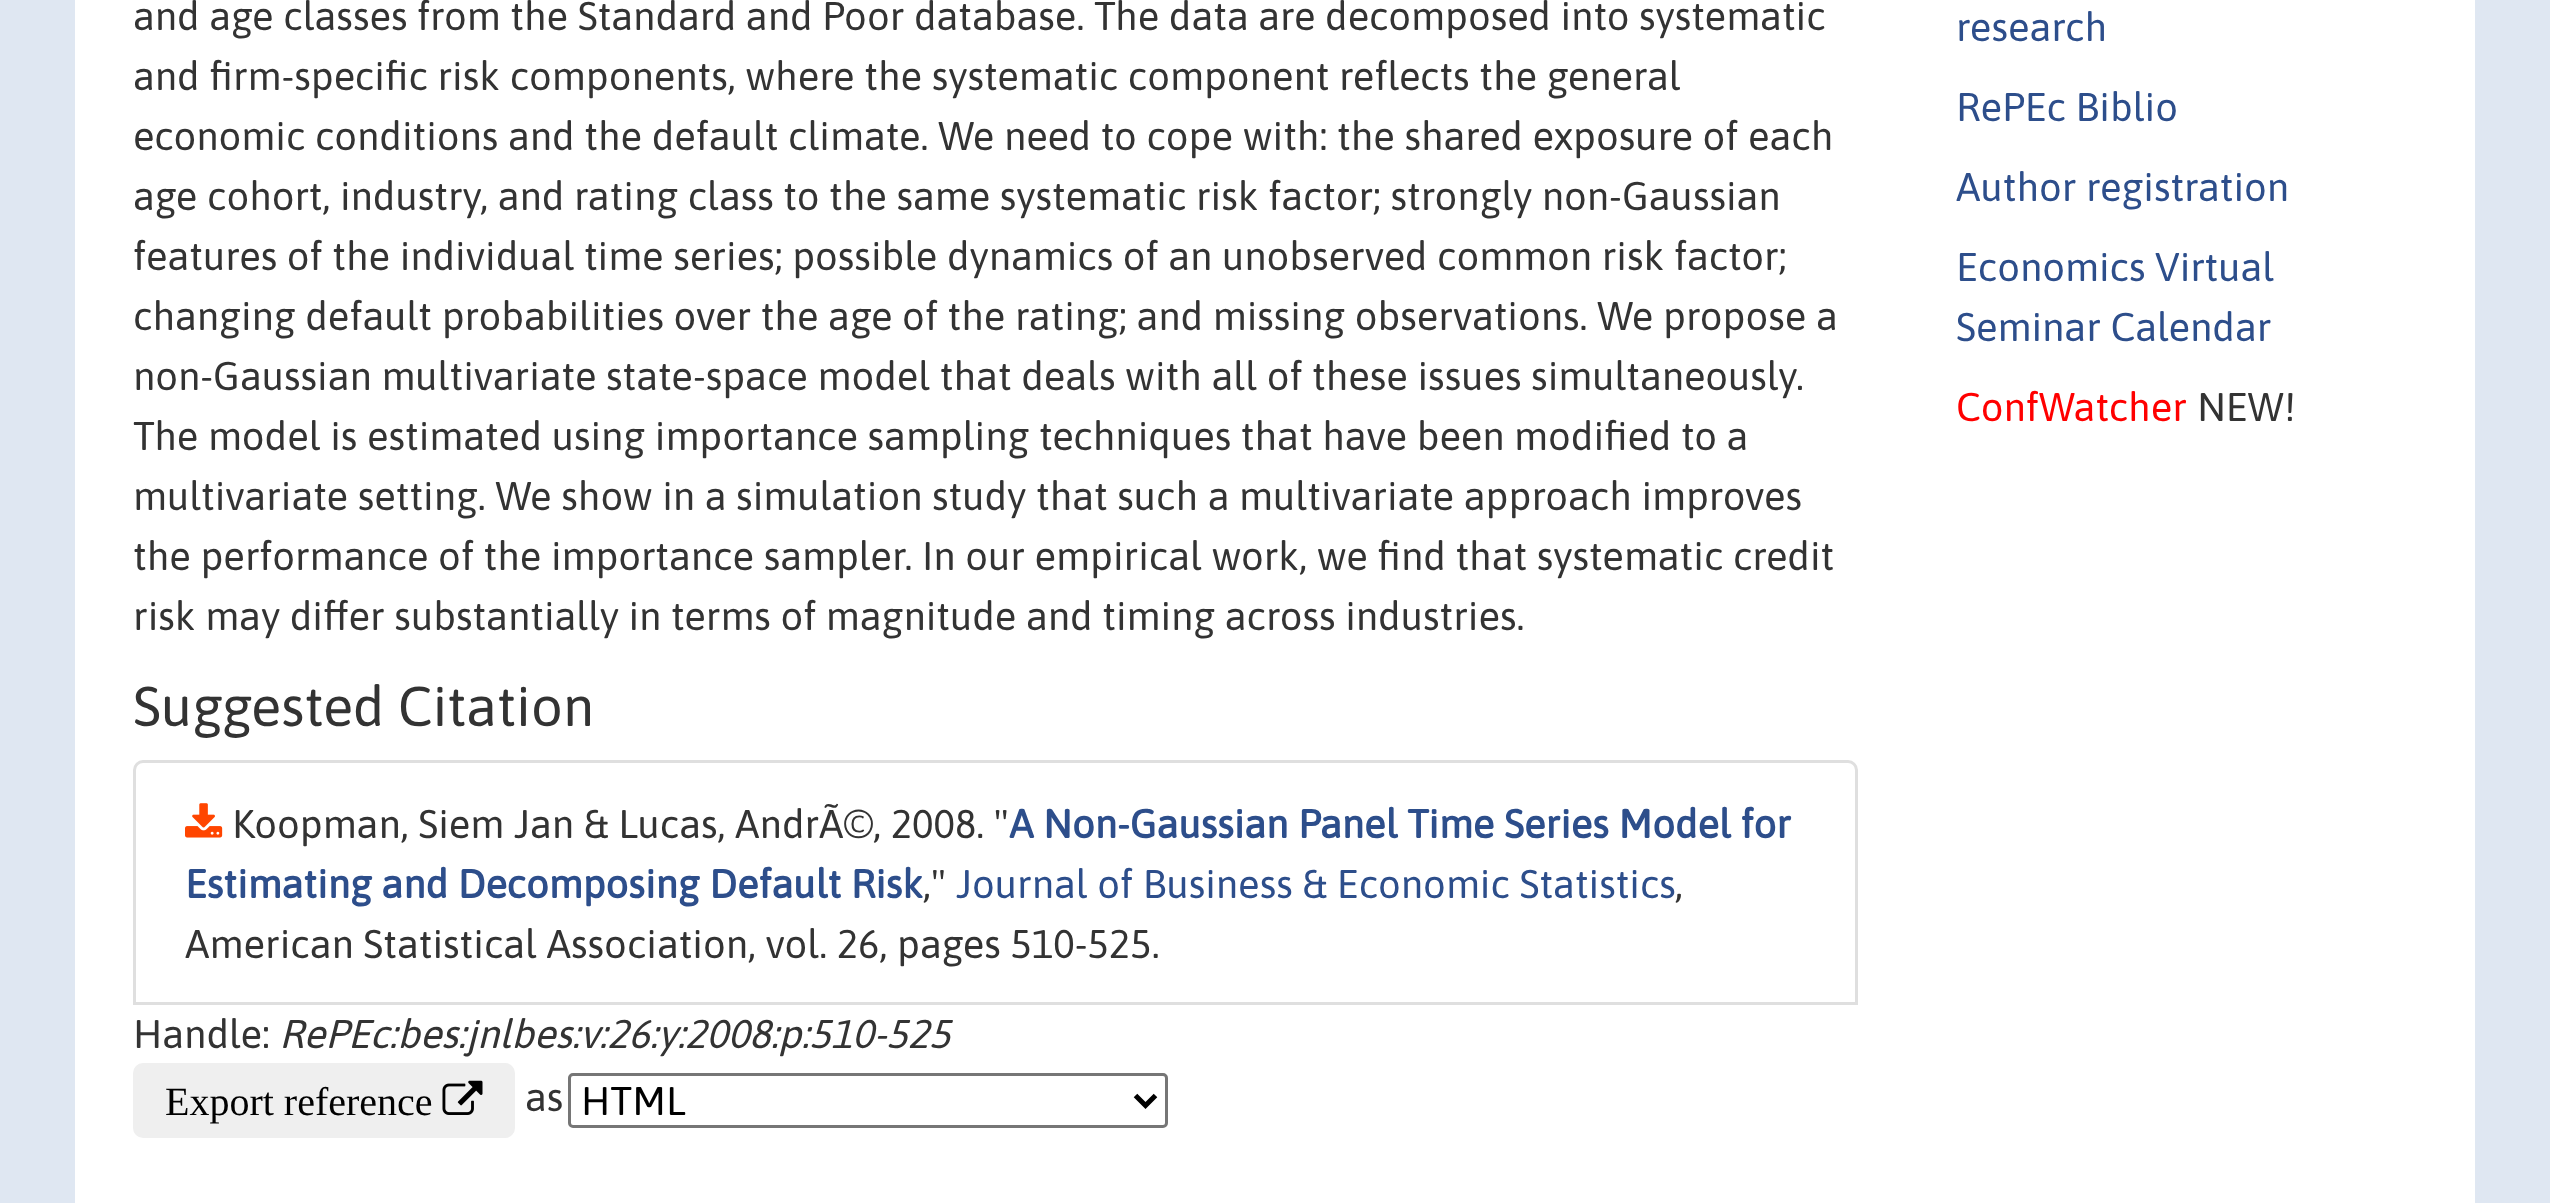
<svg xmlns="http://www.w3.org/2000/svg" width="2550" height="1203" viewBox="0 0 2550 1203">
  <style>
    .t1 { font: 40px Asap; fill: #333; }
    .t2 { font: 56px Asap; fill: #333; }
    .t3 { font: bold 40px Asap; fill: #2d4e8b; }
    .t4 { font: 40px Asap; fill: #2d4e8b; }
    .t5 { font: italic 40px Asap; fill: #333; }
    .t6 { font: 40px Liberation Serif; fill: #000; }
    .t7 { font: 40px Asap; fill: #000; }
    .t8 { font: 40px Asap; fill: #f00; }
  </style>
  <rect width="100%" height="100%" fill="#dfe7f2"/>
  <rect x="75" y="0" width="2400" height="1203" fill="#fff"/>
  <text x="133" y="30" class="t1">and age classes from the Standard and Poor database. The data are decomposed into systematic</text>
  <text x="133" y="90" class="t1">and firm-specific risk components, where the systematic component reflects the general</text>
  <text x="133" y="150" class="t1">economic conditions and the default climate. We need to cope with: the shared exposure of each</text>
  <text x="133" y="210" class="t1">age cohort, industry, and rating class to the same systematic risk factor; strongly non-Gaussian</text>
  <text x="133" y="270" class="t1">features of the individual time series; possible dynamics of an unobserved common risk factor;</text>
  <text x="133" y="330" class="t1">changing default probabilities over the age of the rating; and missing observations. We propose a</text>
  <text x="133" y="390" class="t1">non-Gaussian multivariate state-space model that deals with all of these issues simultaneously.</text>
  <text x="133" y="450" class="t1">The model is estimated using importance sampling techniques that have been modified to a</text>
  <text x="133" y="510" class="t1">multivariate setting. We show in a simulation study that such a multivariate approach improves</text>
  <text x="133" y="570" class="t1">the performance of the importance sampler. In our empirical work, we find that systematic credit</text>
  <text x="133" y="630" class="t1">risk may differ substantially in terms of magnitude and timing across industries.</text>
  <text x="133" y="726" class="t2">Suggested Citation</text>
  <path d="M143 761.5H1848C1852.5 761.5 1856.5 765.5 1856.5 770V1003.5H134.5V770C134.5 765.5 138.5 761.5 143 761.5Z" fill="none" stroke="#dfdfdf" stroke-width="3"/>
  <image x="185" y="803" width="38" height="35" href="images/1.png"/>
  <text x="232" y="838" class="t1">Koopman, Siem Jan &amp; Lucas, AndrÃ©, 2008. "</text>
  <text x="1009" y="838" class="t3">A Non-Gaussian Panel Time Series Model for</text>
  <text x="185" y="898" class="t3">Estimating and Decomposing Default Risk</text>
  <text x="923" y="898" class="t1">,"</text>
  <text x="956" y="898" class="t4">Journal of Business &amp; Economic Statistics</text>
  <text x="1675" y="898" class="t1">,</text>
  <text x="185" y="958" class="t1">American Statistical Association, vol. 26, pages 510-525.</text>
  <text x="133" y="1048" class="t1">Handle:</text>
  <text x="279" y="1048" class="t5">RePEc:bes:jnlbes:v:26:y:2008:p:510-525</text>
  <rect x="133" y="1063" width="382" height="75" rx="10" fill="#efefef"/>
  <text x="165" y="1115" class="t6">Export reference</text>
  <image x="442" y="1080" width="41" height="35" href="images/2.png"/>
  <text x="525" y="1111" class="t1">as</text>
  <rect x="569.5" y="1074.5" width="597" height="52" rx="3.5" fill="none" stroke="#767676" stroke-width="3"/>
  <path d="M1135.5 1095.5L1145.5 1105.5L1155.5 1095.5" fill="none" stroke="#000" stroke-width="5"/>
  <text x="581" y="1115" class="t7">HTML</text>
  <text x="1956" y="41" class="t4">research</text>
  <text x="1956" y="121" class="t4">RePEc Biblio</text>
  <text x="1956" y="201" class="t4">Author registration</text>
  <text x="1956" y="281" class="t4">Economics Virtual</text>
  <text x="1956" y="341" class="t4">Seminar Calendar</text>
  <text x="1956" y="421" class="t8">ConfWatcher</text>
  <text x="2197" y="421" class="t1">NEW!</text>
</svg>
